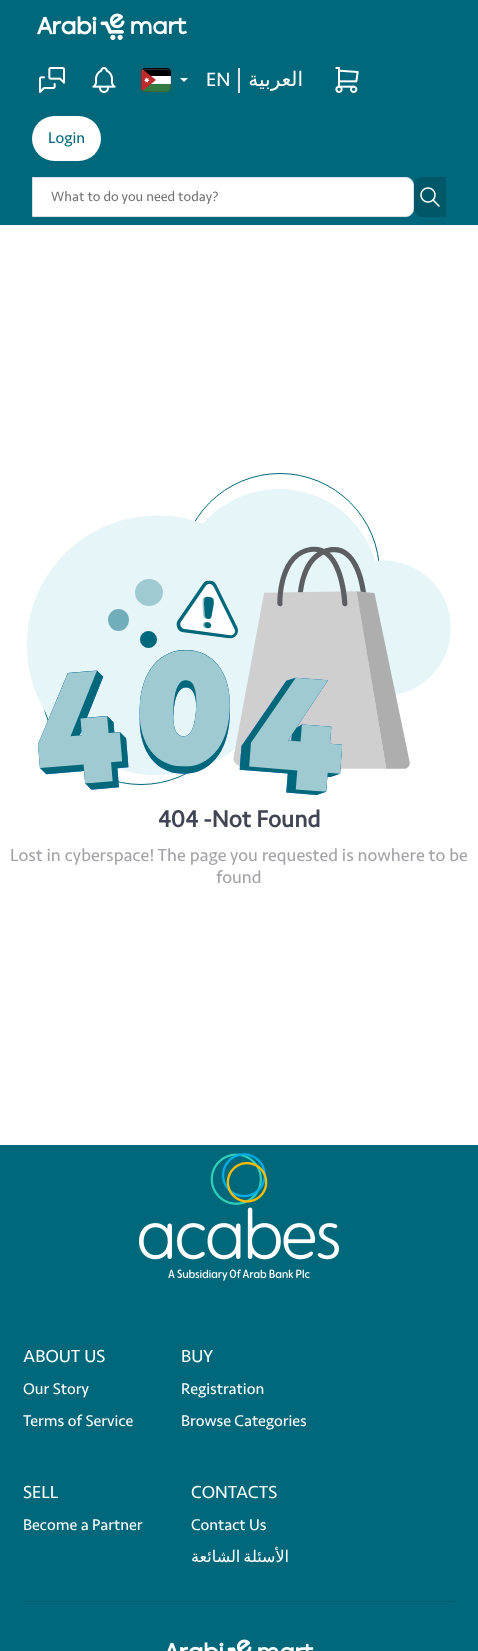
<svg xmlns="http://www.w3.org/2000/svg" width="478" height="1651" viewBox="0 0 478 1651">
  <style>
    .t1 { font: 20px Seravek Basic; fill: #fff; }
    .t2 { font: 20px DejaVu Sans; direction: rtl; fill: #fff; }
    .t3 { font: 16px Seravek Basic; fill: #00687a; }
    .t4 { font: 14px Seravek Basic; fill: #757575; }
    .t5 { font: bold 24px Seravek Basic; fill: #404553; }
    .t6 { font: 18px Seravek Basic; fill: #a3a2a9; }
    .t7 { font: 18px Seravek Basic; fill: #fff; }
    .t8 { font: 16px Seravek Basic; fill: #fff; }
    .t9 { font: 16px DejaVu Sans; direction: rtl; fill: #fff; }
  </style>
  <rect width="100%" height="100%" fill="#fff"/>
  <rect x="0" y="0" width="478" height="225" fill="#00687a"/>
  <image x="37" y="13" width="150" height="27" href="images/1.png"/>
  <image x="39" y="67" width="26" height="26" href="images/2.png"/>
  <image x="92" y="67" width="24" height="26" href="images/3.png"/>
  <image x="141" y="68" width="30" height="24" href="images/4.png"/>
  <path d="M180 78H188L184 82Z" fill="#fff"/>
  <text x="206" y="86" class="t1">EN</text>
  <rect x="238" y="68" width="2" height="25" fill="#dee2e6"/>
  <text x="303" y="86" class="t2">العربية</text>
  <image x="335" y="67" width="24" height="26" href="images/5.png"/>
  <rect x="32" y="116" width="69" height="45" rx="22.5" fill="#fff"/>
  <text x="48" y="143" class="t3">Login</text>
  <path d="M32.5 177.5H406C410 177.5 413.5 181 413.5 185V209C413.5 213 410 216.5 406 216.5H32.5Z" fill="#fff" stroke="#d3e0e7"/>
  <text x="51" y="201" class="t4">What to do you need today?</text>
  <path d="M422 177H446V217H422C417.5 217 414 213.5 414 209V185C414 180.5 417.5 177 422 177Z" fill="#005767"/>
  <image x="420" y="187" width="20" height="20" href="images/6.png"/>
  <image x="27" y="473" width="424" height="322" href="images/7.png"/>
  <text x="158" y="827" class="t5">404 -Not Found</text>
  <text x="10" y="861" class="t6">Lost in cyberspace! The page you requested is nowhere to be</text>
  <text x="216" y="883" class="t6">found</text>
  <rect x="0" y="1145" width="478" height="506" fill="#00687a"/>
  <image x="139" y="1153" width="200" height="128" href="images/8.png"/>
  <text x="23" y="1362" class="t7">ABOUT US</text>
  <text x="23" y="1394" class="t8">Our Story</text>
  <text x="23" y="1426" class="t8">Terms of Service</text>
  <text x="181" y="1362" class="t7">BUY</text>
  <text x="181" y="1394" class="t8">Registration</text>
  <text x="181" y="1426" class="t8">Browse Categories</text>
  <text x="23" y="1498" class="t7">SELL</text>
  <text x="23" y="1530" class="t8">Become a Partner</text>
  <text x="191" y="1498" class="t7">CONTACTS</text>
  <text x="191" y="1530" class="t8">Contact Us</text>
  <text x="289" y="1562" word-spacing="-2" class="t9">الأسئلة الشائعة</text>
  <rect x="23" y="1601" width="432" height="1" fill="#005e6e"/>
  <image x="167" y="1639" width="147" height="12" href="images/9.png"/>
</svg>
